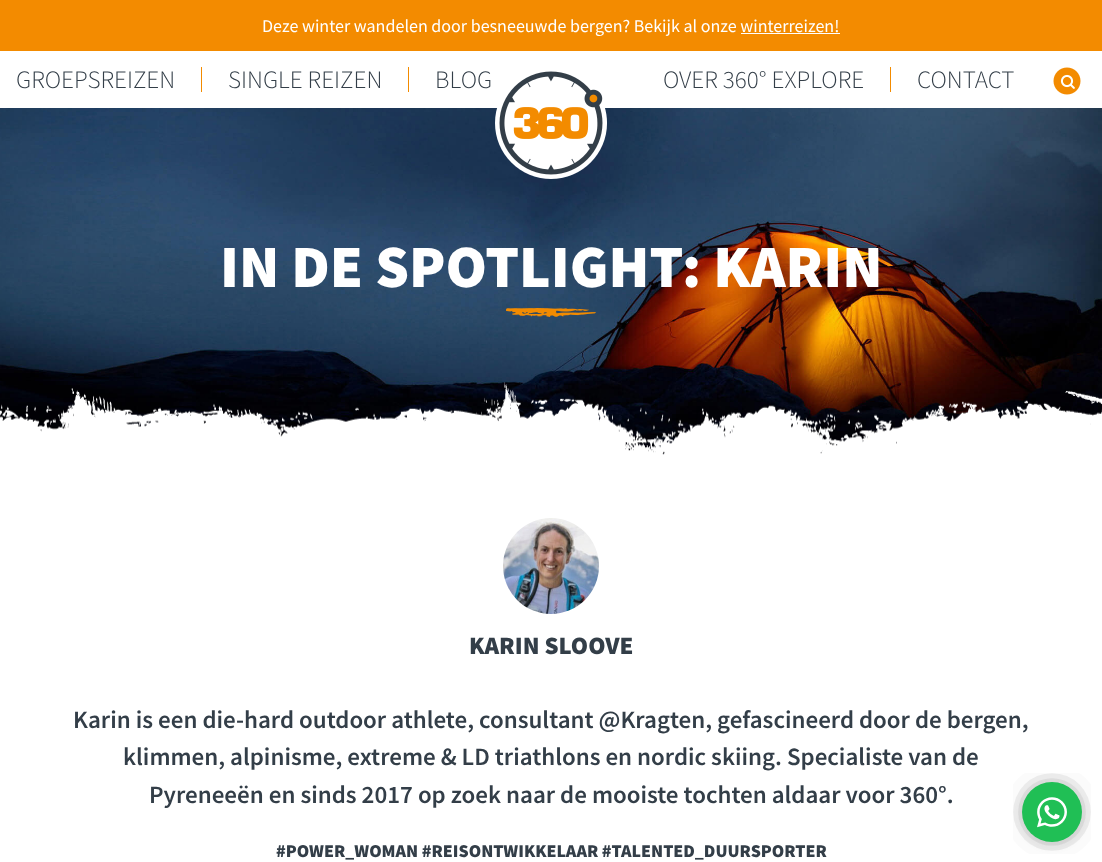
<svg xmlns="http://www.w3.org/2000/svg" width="1102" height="862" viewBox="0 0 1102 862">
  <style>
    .t1 { font: 18px Source Sans Pro; fill: #fff; }
    .t2 { font: 300 25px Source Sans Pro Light; fill: #333e48; }
    .t3 { font: 900 60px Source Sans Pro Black; fill: #fff; }
    .t4 { font: 900 25px Source Sans Pro Black; fill: #333e48; }
    .t5 { font: 600 25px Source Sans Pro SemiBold; fill: #333e48; }
    .t6 { font: 900 18px Source Sans Pro Black; fill: #333e48; }
  </style>
  <rect width="100%" height="100%" fill="#fff"/>
  <rect x="0" y="0" width="1102" height="51" fill="#f38b00"/>
  <text x="262" y="32" class="t1">Deze winter wandelen door besneeuwde bergen? Bekijk al onze winterreizen!</text>
  <rect x="741" y="33" width="99" height="1" fill="#fff"/>
  <rect x="201" y="67" width="1" height="25" fill="#f38b00"/>
  <text x="16" y="88" class="t2">GROEPSREIZEN</text>
  <rect x="408" y="67" width="1" height="25" fill="#f38b00"/>
  <text x="228" y="88" class="t2">SINGLE REIZEN</text>
  <text x="435" y="88" class="t2">BLOG</text>
  <rect x="890" y="67" width="1" height="25" fill="#f38b00"/>
  <text x="663" y="88" class="t2">OVER 360° EXPLORE</text>
  <text x="917" y="88" class="t2">CONTACT</text>
  <image x="1053" y="67" width="28" height="28" href="images/1.png"/>
  <image x="0" y="108" width="1102" height="362" href="images/3.png"/>
  <image x="495" y="71" width="112" height="108" href="images/2.png"/>
  <text x="220" y="287" class="t3">IN DE SPOTLIGHT: KARIN</text>
  <image x="506" y="308" width="90" height="9" href="images/4.png"/>
  <image x="503" y="518" width="96" height="96" href="images/5.png"/>
  <text x="469" y="654" class="t4">KARIN SLOOVE</text>
  <text x="73" y="728" class="t5">Karin is een die-hard outdoor athlete, consultant @Kragten, gefascineerd door de bergen,</text>
  <text x="123" y="765" class="t5">klimmen, alpinisme, extreme &amp; LD triathlons en nordic skiing. Specialiste van de</text>
  <text x="149" y="803" class="t5">Pyreneeën en sinds 2017 op zoek naar de mooiste tochten aldaar voor 360°.</text>
  <text x="276" y="857" class="t6">#POWER_WOMAN #REISONTWIKKELAAR #TALENTED_DUURSPORTER</text>
  <image x="1013" y="773" width="78" height="81" href="images/6.png"/>
</svg>
